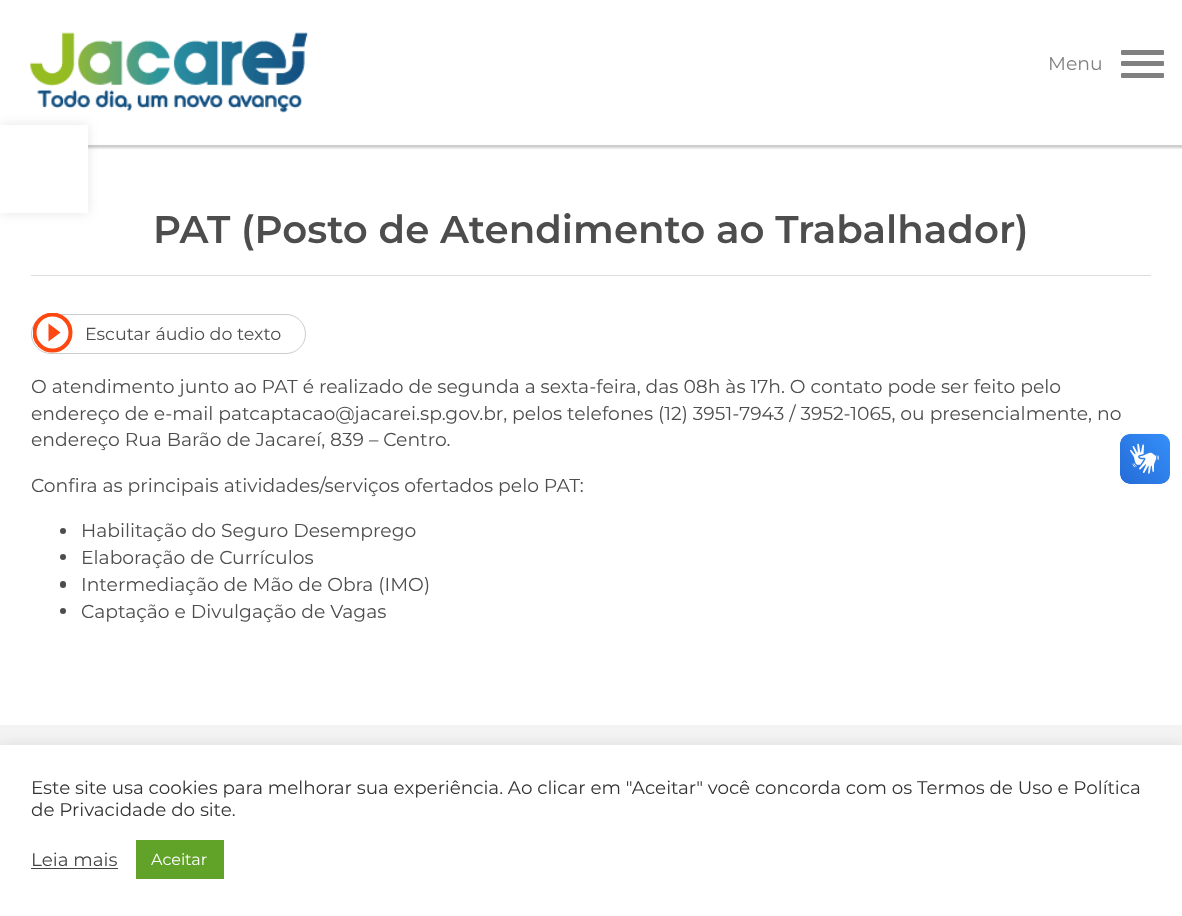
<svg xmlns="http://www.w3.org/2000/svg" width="1182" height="916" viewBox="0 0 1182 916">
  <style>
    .t1 { font: 18.75px Montserrat; fill: #808080; }
    .t2 { font: 600 38.75px Montserrat; fill: #4d4d4d; }
    .t3 { font: 17.5px Montserrat; fill: #4d4d4d; }
    .t4 { font: 18.75px Montserrat; fill: #4d4d4d; }
    .t5 { font: 18.33px Montserrat; fill: #333; }
    .t6 { font: 18.33px Montserrat; fill: #444; }
    .t7 { font: 16px Montserrat; fill: #fff; }
  </style>
  <defs>
    <clipPath id="clip1"><rect x="33" y="313" width="40" height="40"/></clipPath>
  </defs>
  <rect width="100%" height="100%" fill="#f3f3f3"/>
  <rect x="0" y="145" width="1182" height="580" fill="#fff"/>
  <rect x="3" y="3" width="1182" height="145" fill="#00000033" filter="blur(1px)"/>
  <rect x="0" y="0" width="1182" height="145" fill="#fff"/>
  <image x="30" y="32" width="278" height="81" href="images/1.png"/>
  <text x="1048" y="70" class="t1">Menu</text>
  <rect x="1121" y="61" width="43" height="5" rx="1" fill="#808080"/>
  <rect x="1121" y="50" width="43" height="5" rx="1" fill="#808080"/>
  <rect x="1121" y="73" width="43" height="5" rx="1" fill="#808080"/>
  <rect x="0" y="125" width="88" height="88" fill="#0000001a" filter="blur(6px)"/>
  <rect x="0" y="125" width="88" height="88" fill="#fff"/>
  <rect x="31" y="275" width="1120" height="1" fill="#ddd"/>
  <text x="153" y="243" class="t2">PAT (Posto de Atendimento ao Trabalhador)</text>
  <rect x="31.5" y="314.5" width="274" height="39" rx="19.5" fill="none" stroke="#ccc"/>
  <path d="M60.5 332.5L48.5 323.5V341.5Z" fill="#ff4710"/>
  <g clip-path="url(#clip1)">
    <path d="M52.5 314.5C42.5 314.5 34.5 322.5 34.5 332.5C34.5 342.5 42.5 350.5 52.5 350.5C62.5 350.5 70.5 342.5 70.5 332.5C70.5 322.5 62.5 314.5 52.5 314.5Z" fill="none" stroke="#ff4710" stroke-width="4"/>
  </g>
  <text x="85" y="340" class="t3">Escutar áudio do texto</text>
  <text x="31" y="393" class="t4">O atendimento junto ao PAT é realizado de segunda a sexta-feira, das 08h às 17h. O contato pode ser feito pelo</text>
  <text x="31" y="420" class="t4">endereço de e-mail patcaptacao@jacarei.sp.gov.br, pelos telefones (12) 3951-7943 / 3952-1065, ou presencialmente, no</text>
  <text x="31" y="446" class="t4">endereço Rua Barão de Jacareí, 839 – Centro.</text>
  <text x="31" y="492" class="t4">Confira as principais atividades/serviços ofertados pelo PAT:</text>
  <circle cx="63" cy="531" r="3" fill="#4d4d4d"/>
  <text x="81" y="537" class="t4">Habilitação do Seguro Desemprego</text>
  <circle cx="63" cy="557" r="3" fill="#4d4d4d"/>
  <text x="81" y="564" class="t4">Elaboração de Currículos</text>
  <rect x="60" y="581" width="6" height="7" rx="3" fill="#4d4d4d"/>
  <text x="81" y="591" class="t4">Intermediação de Mão de Obra (IMO)</text>
  <circle cx="63" cy="611" r="3" fill="#4d4d4d"/>
  <text x="81" y="618" class="t4">Captação e Divulgação de Vagas</text>
  <image x="1120" y="433" width="50" height="51" href="images/2.png"/>
  <image x="1120" y="434" width="50" height="50" href="images/3.png"/>
  <rect x="0" y="744" width="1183" height="171" fill="#acabab4d" filter="blur(6px)"/>
  <rect x="0" y="745" width="1182" height="171" fill="#fff"/>
  <text x="31" y="794" class="t5">Este site usa cookies para melhorar sua experiência. Ao clicar em "Aceitar" você concorda com os Termos de Uso e Política</text>
  <text x="31" y="816" class="t5">de Privacidade do site.</text>
  <text x="31" y="866" class="t6">Leia mais</text>
  <rect x="31" y="868" width="87" height="1" fill="#444"/>
  <rect x="136" y="840" width="88" height="39" fill="#61a229"/>
  <text x="151" y="865" class="t7">Aceitar</text>
</svg>
